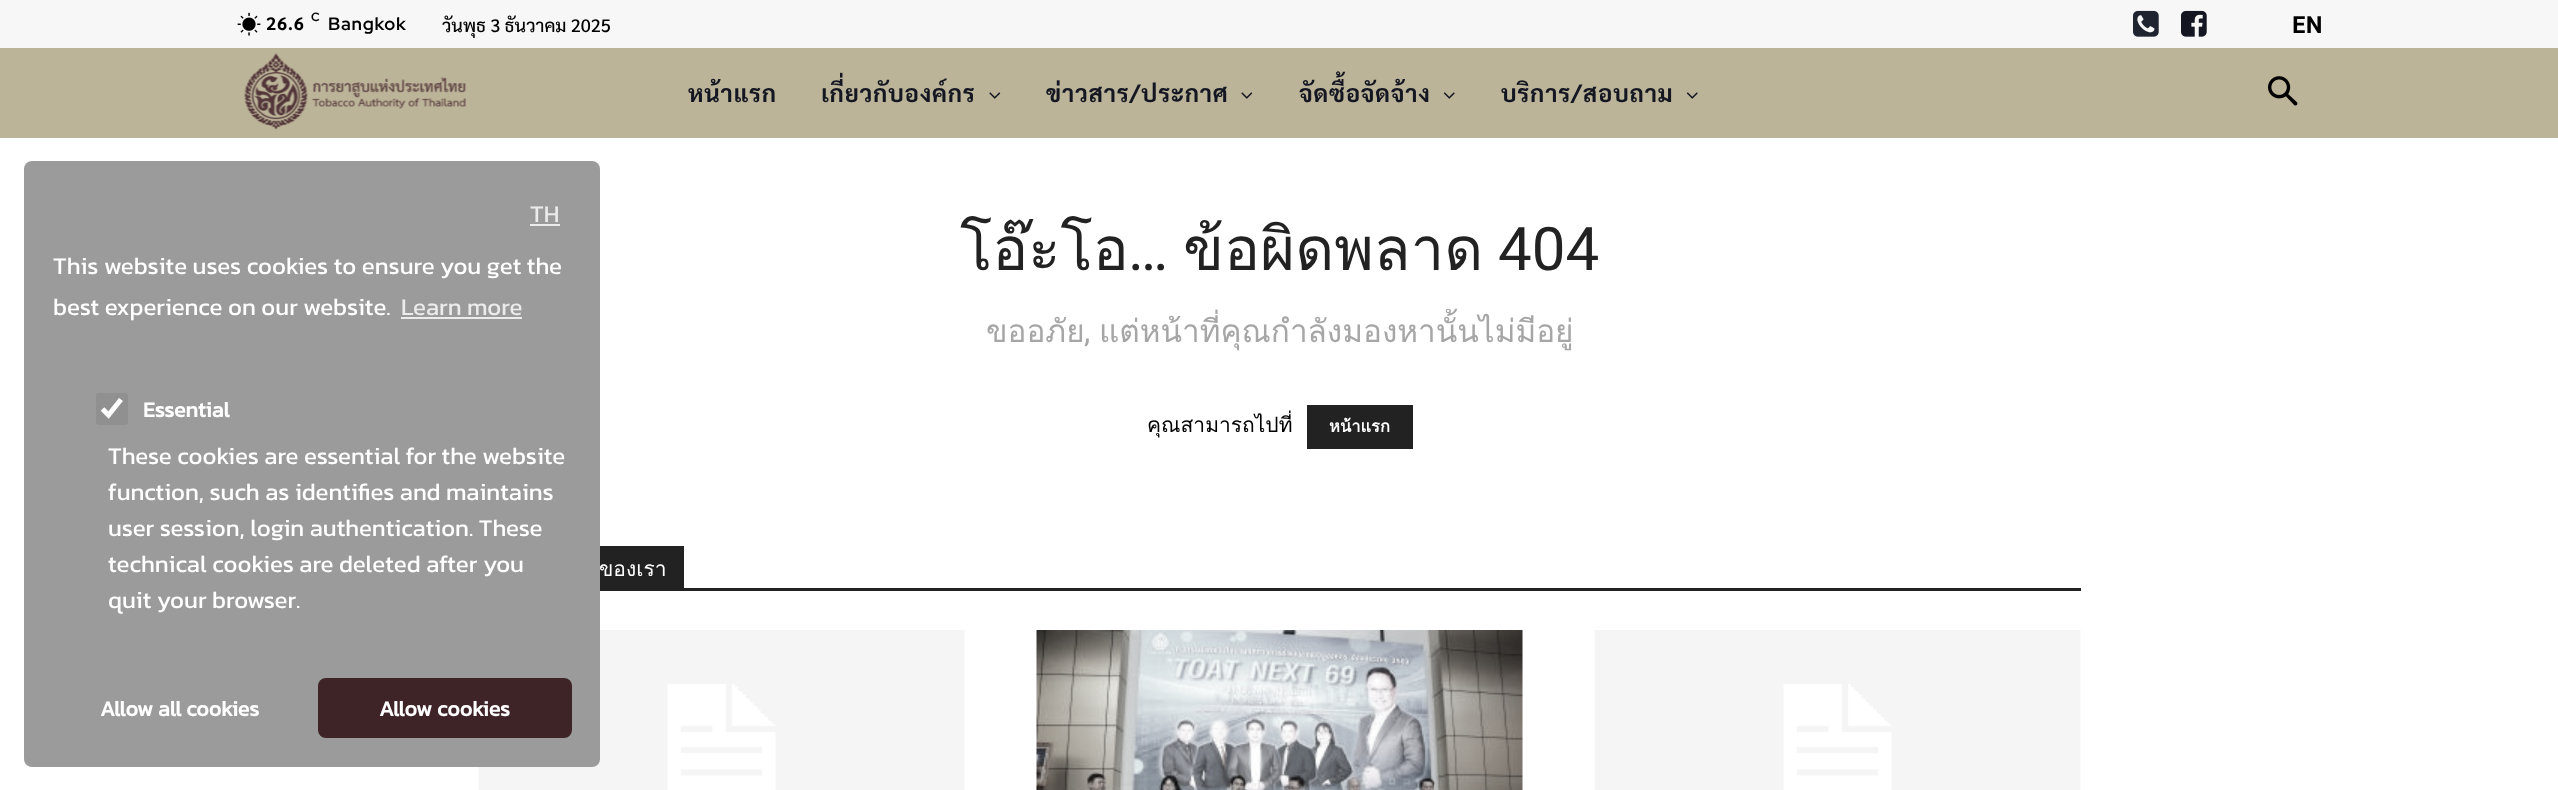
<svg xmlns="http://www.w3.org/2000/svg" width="2558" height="790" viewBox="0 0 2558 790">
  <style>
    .t1 { font: bold 18px Sarabun; letter-spacing: 0.75px; fill: #000; }
    .t2 { font: bold 12px Red Hat Display; letter-spacing: 0.75px; fill: #000; }
    .t3 { font: bold 18px Red Hat Display; letter-spacing: 0.75px; fill: #000; }
    .t4 { font: 500 18px Sarabun; fill: #000; }
    .t5 { font: bold 24px Sarabun; fill: #000; }
    .t6 { font: bold 24px Sarabun; letter-spacing: 0.75px; fill: #141722; }
    .t7 { font: 60px Loma; fill: #222; }
    .t8 { font: 60px Roboto; fill: #222; }
    .t9 { font: 31.5px Loma; fill: #a6a6a6; }
    .t10 { font: 31.5px Roboto; fill: #a6a6a6; }
    .t11 { font: 21px Loma; fill: #000; }
    .t12 { font: bold 16.5px Loma; fill: #fff; }
    .t13 { font: 21px Loma; fill: #fff; }
    .t14 { font: 24px Kanit; fill: #ebebeb; }
    .t15 { font: 24px Kanit; fill: #fff; }
    .t16 { font: bold 21.5px Kanit; fill: #fff; }
  </style>
  <rect width="100%" height="100%" fill="#fff"/>
  <rect x="0" y="0" width="2558" height="48" fill="#f7f7f7"/>
  <image x="237" y="12" width="24" height="24" href="images/1.png"/>
  <text x="266" y="30" class="t1">26.6</text>
  <text x="311" y="21" class="t2">C</text>
  <text x="328" y="30" class="t3">Bangkok</text>
  <text x="442" y="32" class="t4">วันพุธ 3 ธันวาคม 2025</text>
  <image x="2133" y="10" width="26" height="27" href="images/2.png"/>
  <image x="2181" y="10" width="26" height="27" href="images/3.png"/>
  <text x="2292" y="33" class="t5">EN</text>
  <rect x="0" y="48" width="2558" height="90" fill="#bcb499"/>
  <image x="244" y="53" width="222" height="77" href="images/4.png"/>
  <text x="688" y="102" class="t6">หน้าแรก</text>
  <text x="821" y="102" class="t6">เกี่ยวกับองค์กร</text>
  <image x="989" y="92" width="12" height="7" href="images/5.png"/>
  <text x="1046" y="102" class="t6">ข่าวสาร/ประกาศ</text>
  <image x="1241" y="92" width="12" height="7" href="images/5.png"/>
  <text x="1299" y="102" class="t6">จัดซื้อจัดจ้าง</text>
  <image x="1443" y="92" width="12" height="7" href="images/6.png"/>
  <text x="1501" y="102" class="t6">บริการ/สอบถาม</text>
  <image x="1686" y="92" width="12" height="7" href="images/6.png"/>
  <image x="2268" y="76" width="30" height="30" href="images/7.png"/>
  <text x="960" y="270" class="t7">โอ๊ะโอ</text>
  <text x="1128" y="270" class="t8">…</text>
  <text x="1183" y="270" class="t7">ข้อผิดพลาด</text>
  <text x="1498" y="270" class="t8">404</text>
  <text x="986" y="342" class="t9">ขออภัย</text>
  <text x="1084" y="342" class="t10">,</text>
  <text x="1099" y="342" class="t9">แต่หน้าที่คุณกำลังมองหานั้นไม่มีอยู่</text>
  <text x="1147" y="432" class="t11">คุณสามารถไปที่</text>
  <rect x="1307" y="405" width="106" height="44" fill="#222"/>
  <text x="1329" y="432" class="t12">หน้าแรก</text>
  <rect x="600" y="588" width="1481" height="3" fill="#222"/>
  <rect x="600" y="546" width="84" height="42" fill="#222"/>
  <text x="599" y="576" class="t13">ของเรา</text>
  <image x="478" y="630" width="487" height="160" href="images/8.png"/>
  <image x="1036" y="630" width="487" height="160" href="images/9.png"/>
  <image x="1594" y="630" width="487" height="160" href="images/10.png"/>
  <rect x="24" y="161" width="576" height="606" rx="8" fill="#9b9b9b"/>
  <text x="530" y="222" class="t14">TH</text>
  <rect x="530" y="224" width="30" height="2" fill="#ebebeb"/>
  <text x="53" y="274" class="t15">This website uses cookies to ensure you get the</text>
  <text x="53" y="315" class="t15">best experience on our website.</text>
  <text x="401" y="315" class="t14">Learn more</text>
  <rect x="401" y="317" width="121" height="2" fill="#ebebeb"/>
  <rect x="96" y="393" width="32" height="32" rx="3" fill="#909090"/>
  <path d="M102.5 409L108.5 415L121 399.5" fill="none" stroke="#fff" stroke-width="5"/>
  <text x="143" y="417" class="t16">Essential</text>
  <text x="108" y="464" class="t15">These cookies are essential for the website</text>
  <text x="108" y="500" class="t15">function, such as identifies and maintains</text>
  <text x="108" y="536" class="t15">user session, login authentication. These</text>
  <text x="108" y="572" class="t15">technical cookies are deleted after you</text>
  <text x="108" y="608" class="t15">quit your browser.</text>
  <text x="100" y="716" class="t16">Allow all cookies</text>
  <rect x="318" y="678" width="254" height="60" rx="8" fill="#3e2427"/>
  <text x="379" y="716" class="t16">Allow cookies</text>
</svg>
